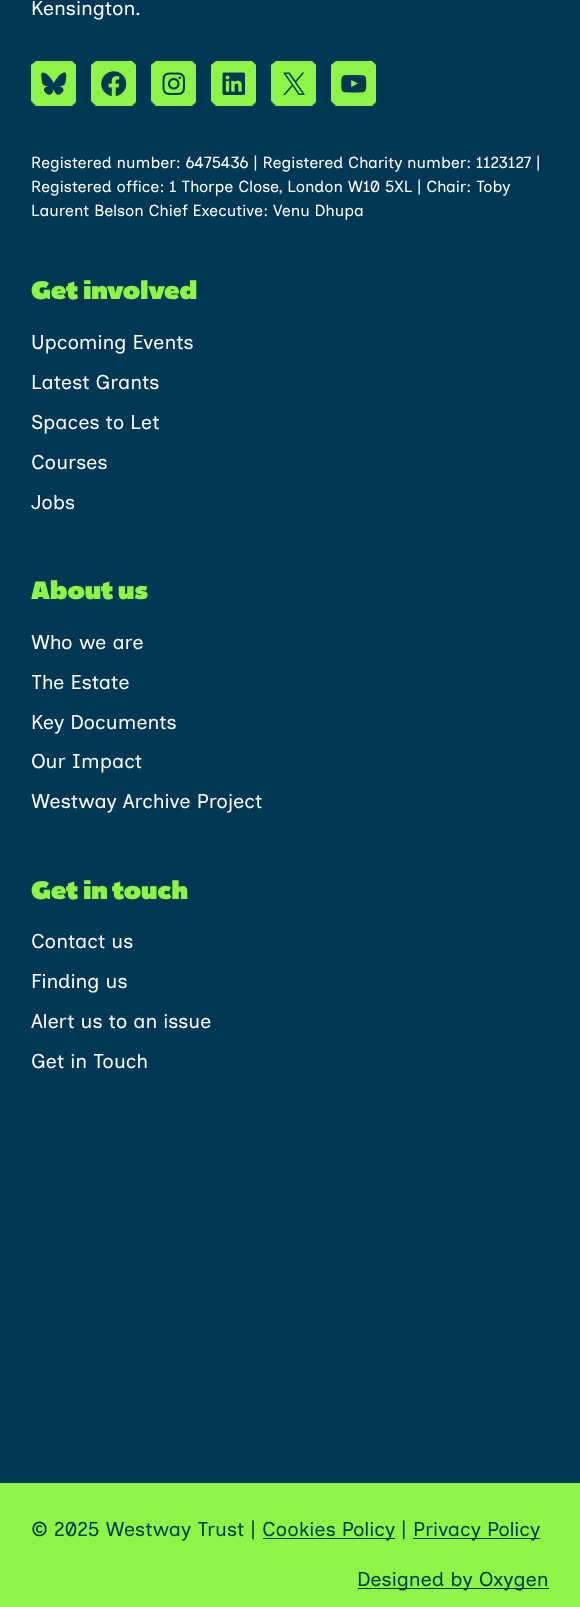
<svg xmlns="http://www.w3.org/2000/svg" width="580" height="1607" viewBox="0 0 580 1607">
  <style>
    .t1 { font: 20px Inclusive Sans; fill: #fff; }
    .t2 { font: 16px Inclusive Sans; fill: #fff; }
    .t3 { font: 800 25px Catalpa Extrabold; fill: #8cf545; }
    .t4 { font: 20px Inclusive Sans; fill: #003755; }
  </style>
  <rect width="100%" height="100%" fill="#003755"/>
  <text x="31" y="15" class="t1">Kensington.</text>
  <path d="M31 65V101L36 106H72L76 102V65L72 61H36Z" fill="#8cf545"/>
  <image x="41" y="72" width="26" height="23" href="images/1.png"/>
  <path d="M91 65V101L96 106H132L136 102V65L132 61H96Z" fill="#8cf545"/>
  <image x="101" y="71" width="26" height="26" href="images/2.png"/>
  <path d="M151 65V101L156 106H192L196 102V65L192 61H156Z" fill="#8cf545"/>
  <image x="162" y="72" width="23" height="23" href="images/3.png"/>
  <path d="M211 65V101L216 106H252L256 102V65L252 61H216Z" fill="#8cf545"/>
  <image x="222" y="72" width="23" height="23" href="images/4.png"/>
  <path d="M271 65V101L276 106H312L316 102V65L312 61H276Z" fill="#8cf545"/>
  <image x="283" y="72" width="22" height="23" href="images/5.png"/>
  <path d="M331 65V101L336 106H372L376 102V65L372 61H336Z" fill="#8cf545"/>
  <image x="341" y="74" width="26" height="19" href="images/6.png"/>
  <text x="31" y="168" class="t2">Registered number: 6475436 | Registered Charity number: 1123127 |</text>
  <text x="31" y="192" class="t2">Registered office: 1 Thorpe Close, London W10 5XL | Chair: Toby</text>
  <text x="31" y="216" class="t2">Laurent Belson Chief Executive: Venu Dhupa</text>
  <text x="31" y="299" class="t3">Get involved</text>
  <text x="31" y="349" class="t1">Upcoming Events</text>
  <text x="31" y="389" class="t1">Latest Grants</text>
  <text x="31" y="429" class="t1">Spaces to Let</text>
  <text x="31" y="469" class="t1">Courses</text>
  <text x="31" y="509" class="t1">Jobs</text>
  <text x="31" y="599" class="t3">About us</text>
  <text x="31" y="649" class="t1">Who we are</text>
  <text x="31" y="689" class="t1">The Estate</text>
  <text x="31" y="729" class="t1">Key Documents</text>
  <text x="31" y="768" class="t1">Our Impact</text>
  <text x="31" y="808" class="t1">Westway Archive Project</text>
  <text x="31" y="899" class="t3">Get in touch</text>
  <text x="31" y="948" class="t1">Contact us</text>
  <text x="31" y="988" class="t1">Finding us</text>
  <text x="31" y="1028" class="t1">Alert us to an issue</text>
  <text x="31" y="1068" class="t1">Get in Touch</text>
  <rect x="0" y="1483" width="580" height="124" fill="#8cf545"/>
  <text x="31" y="1536" class="t4">© 2025 Westway Trust |</text>
  <rect x="263" y="1538" width="132" height="1" fill="#003755"/>
  <text x="262" y="1536" class="t4">Cookies Policy |</text>
  <rect x="413" y="1538" width="127" height="1" fill="#003755"/>
  <text x="413" y="1536" class="t4">Privacy Policy</text>
  <rect x="358" y="1588" width="191" height="1" fill="#003755"/>
  <text x="357" y="1586" class="t4">Designed by Oxygen</text>
</svg>
